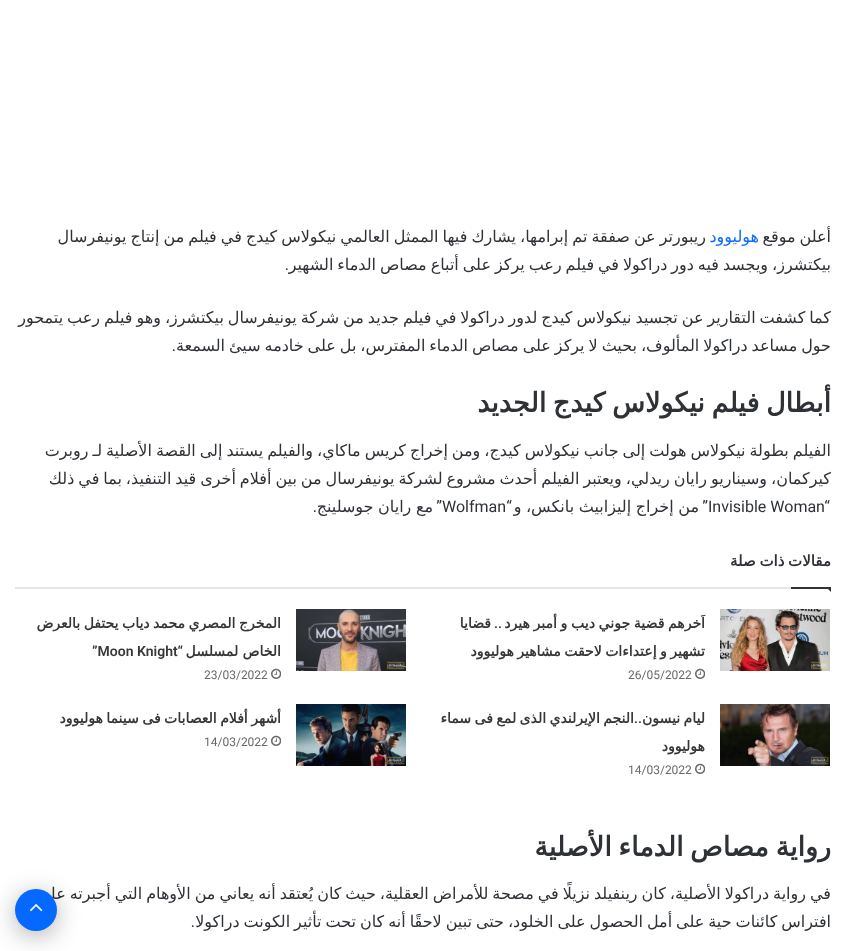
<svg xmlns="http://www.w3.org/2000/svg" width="846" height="951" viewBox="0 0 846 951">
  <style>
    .t1 { font: 16px DejaVu Sans; direction: rtl; fill: #2e3136; }
    .t2 { font: 16px DejaVu Sans; direction: rtl; fill: #086bff; }
    .t3 { font: 16px Roboto; direction: rtl; fill: #2e3136; }
    .t4 { font: bold 27px DejaVu Sans; direction: rtl; fill: #2e3136; }
    .t5 { font: 16px Roboto; fill: #2e3136; }
    .t6 { font: bold 15px DejaVu Sans; direction: rtl; fill: #2e3136; }
    .t7 { font: bold 14px DejaVu Sans; direction: rtl; fill: #373737; }
    .t8 { font: 600 14px Roboto; direction: rtl; fill: #373737; }
    .t9 { font: 12px Roboto; fill: #696969; }
    .t10 { font: 600 14px Roboto; fill: #373737; }
  </style>
  <rect width="100%" height="100%" fill="#fff"/>
  <text x="831" y="242" word-spacing="-1.1" class="t1">أعلن موقع</text>
  <text x="759" y="242" class="t2">هوليوود</text>
  <text x="706" y="242" word-spacing="-1" class="t1">ريبورتر عن صفقة تم إبرامها، يشارك فيها الممثل العالمي نيكولاس كيدج في فيلم من إنتاج يونيفرسال</text>
  <text x="831" y="270" word-spacing="-1.1" class="t1">بيكتشرز، ويجسد فيه دور دراكولا في فيلم رعب يركز على أتباع مصاص الدماء الشهير</text>
  <text x="289" y="270" class="t3">.</text>
  <text x="831" y="323" word-spacing="-1.1" class="t1">كما كشفت التقارير عن تجسيد نيكولاس كيدج لدور دراكولا في فيلم جديد من شركة يونيفرسال بيكتشرز، وهو فيلم رعب يتمحور</text>
  <text x="831" y="351" word-spacing="-1.1" class="t1">حول مساعد دراكولا المألوف، بحيث لا يركز على مصاص الدماء المفترس، بل على خادمه سيئ السمعة</text>
  <text x="176" y="351" class="t3">.</text>
  <text x="831" y="412" word-spacing="-2" class="t4">أبطال فيلم نيكولاس كيدج الجديد</text>
  <text x="831" y="456" word-spacing="-1.1" class="t1">الفيلم بطولة نيكولاس هولت إلى جانب نيكولاس كيدج، ومن إخراج كريس ماكاي، والفيلم يستند إلى القصة الأصلية لـ روبرت</text>
  <text x="831" y="484" word-spacing="-1.1" class="t1">كيركمان، وسيناريو رايان ريدلي، ويعتبر الفيلم أحدث مشروع لشركة يونيفرسال من بين أفلام أخرى قيد التنفيذ، بما في ذلك</text>
  <text x="708" y="512" class="t5">Invisible Woman“</text>
  <text x="708" y="512" class="t3">”</text>
  <text x="699" y="512" word-spacing="-0.5" class="t1">من إخراج إليزابيث بانكس، و</text>
  <text x="512" y="512" class="t3">“</text>
  <text x="442" y="512" class="t5">Wolfman</text>
  <text x="442" y="512" class="t3">”</text>
  <text x="433" y="512" word-spacing="-0.5" class="t1">مع رايان جوسلينج</text>
  <text x="317" y="512" class="t3">.</text>
  <rect x="15" y="587" width="776" height="2" fill="#e6e6e6"/>
  <text x="831" y="566" word-spacing="-1" class="t6">مقالات ذات صلة</text>
  <path d="M826 587H831V592Z" fill="#303338"/>
  <rect x="791" y="587" width="40" height="2" fill="#303338"/>
  <image x="720" y="609" width="110" height="62" href="images/1.png"/>
  <text x="705" y="628" word-spacing="-0.75" class="t7">اَخرهم قضية جوني ديب و أمبر هيرد</text>
  <text x="502" y="628" class="t8">..</text>
  <text x="491" y="628" class="t7">قضايا</text>
  <text x="705" y="656" word-spacing="-1" class="t7">تشهير و إعتداءات لاحقت مشاهير هوليوود</text>
  <image x="695" y="668" width="10" height="11" href="images/2.png"/>
  <text x="628" y="679" class="t9">26/05/2022</text>
  <image x="296" y="609" width="110" height="62" href="images/3.png"/>
  <text x="281" y="628" word-spacing="-1" class="t7">المخرج المصري محمد دياب يحتفل بالعرض</text>
  <text x="281" y="656" class="t7">الخاص لمسلسل</text>
  <text x="183" y="656" class="t8">“</text>
  <text x="92" y="656" class="t10">”Moon Knight</text>
  <image x="271" y="668" width="10" height="11" href="images/2.png"/>
  <text x="204" y="679" class="t9">23/03/2022</text>
  <image x="720" y="704" width="110" height="62" href="images/4.png"/>
  <text x="705" y="723" word-spacing="-1" class="t7">ليام نيسون</text>
  <text x="634" y="723" word-spacing="-1" class="t7">النجم الإيرلندي الذى لمع فى سماء</text>
  <text x="642" y="723" class="t8">..</text>
  <text x="705" y="751" class="t7">هوليوود</text>
  <image x="695" y="763" width="10" height="11" href="images/2.png"/>
  <text x="628" y="774" class="t9">14/03/2022</text>
  <image x="296" y="704" width="110" height="62" href="images/5.png"/>
  <text x="281" y="723" word-spacing="-1" class="t7">أشهر أفلام العصابات فى سينما هوليوود</text>
  <image x="271" y="735" width="10" height="11" href="images/2.png"/>
  <text x="204" y="746" class="t9">14/03/2022</text>
  <text x="831" y="856" word-spacing="-2" class="t4">رواية مصاص الدماء الأصلية</text>
  <text x="831" y="899" word-spacing="-1.1" class="t1">في رواية دراكولا الأصلية، كان رينفيلد نزيلًا في مصحة للأمراض العقلية، حيث كان يُعتقد أنه يعاني من الأوهام التي أجبرته على</text>
  <text x="831" y="927" word-spacing="-1.1" class="t1">افتراس كائنات حية على أمل الحصول على الخلود، حتى تبين لاحقًا أنه كان تحت تأثير الكونت دراكولا</text>
  <text x="195" y="927" class="t3">.</text>
  <rect x="15" y="894" width="42" height="42" rx="21" fill="#0000004d" filter="blur(12.5px)"/>
  <circle cx="36" cy="910" r="21" fill="#0669ff"/>
  <image x="30" y="904" width="13" height="8" href="images/6.png"/>
</svg>
